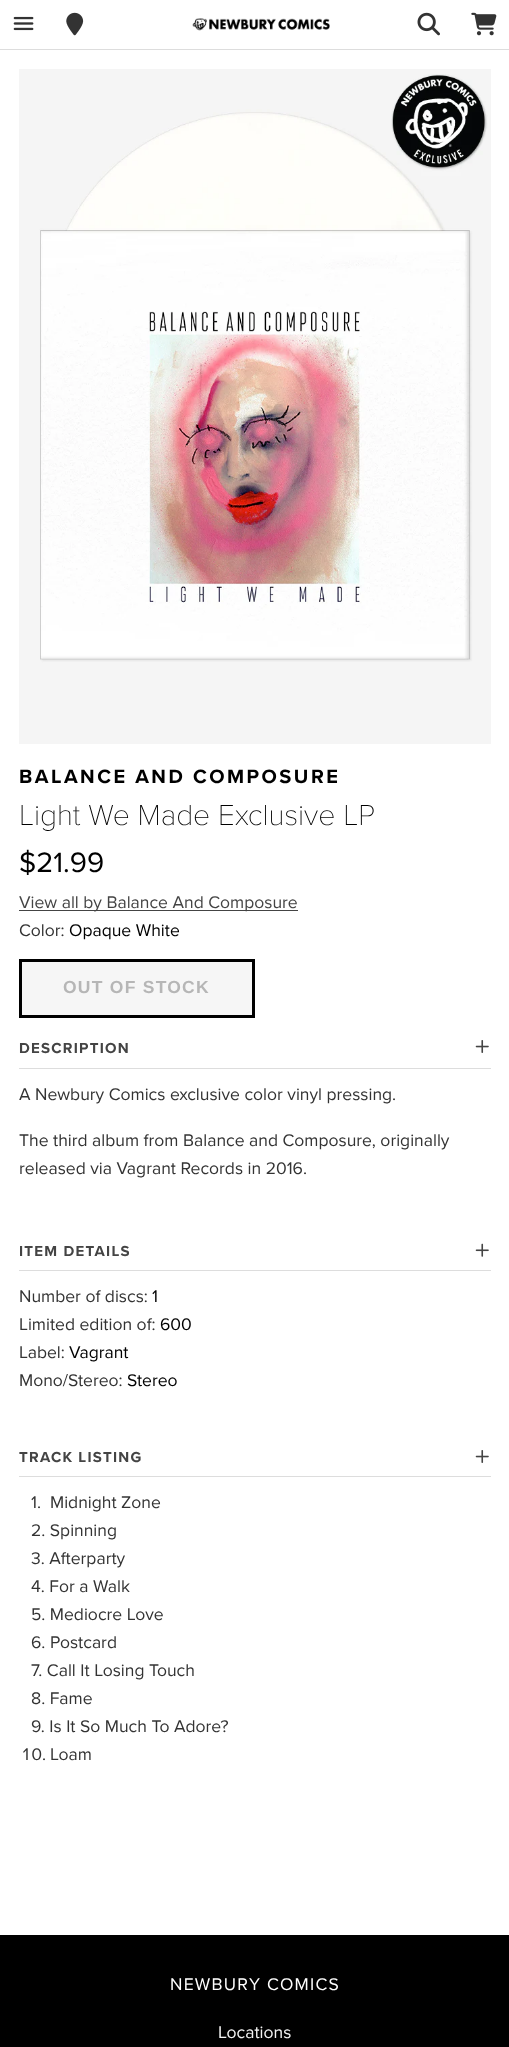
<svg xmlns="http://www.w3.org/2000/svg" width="509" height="2047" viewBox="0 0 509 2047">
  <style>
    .t1 { font: bold 20px Proxima Nova; letter-spacing: 2.5px; fill: #000; }
    .t2 { font: 100 30px Proxima Nova; fill: #000; }
    .t3 { font: 29px Proxima Nova; fill: #000; }
    .t4 { font: 17.5px Proxima Nova; fill: #444; }
    .t5 { font: 17.5px Proxima Nova; fill: #333; }
    .t6 { font: 17.5px Proxima Nova; fill: #000; }
    .t7 { font: bold 17.5px Liberation Sans; letter-spacing: 1.25px; fill: #b6b6b6; }
    .t8 { font: bold 15px Proxima Nova; letter-spacing: 1.25px; fill: #444; }
    .t9 { font: 17.5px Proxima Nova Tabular; fill: #333; }
    .t10 { font: 17.5px Proxima Nova; letter-spacing: 1.25px; fill: #fff; }
    .t11 { font: 17.5px Proxima Nova; fill: #f5f5f5; }
  </style>
  <rect width="100%" height="100%" fill="#fff"/>
  <rect x="0" y="49" width="509" height="1" fill="#ddd"/>
  <image x="13" y="16" width="21" height="15" href="images/1.png"/>
  <image x="66" y="12" width="18" height="24" href="images/2.png"/>
  <image x="192" y="18" width="138" height="13" href="images/3.png"/>
  <image x="417" y="12" width="23" height="24" href="images/4.png"/>
  <image x="471" y="12" width="26" height="24" href="images/5.png"/>
  <image x="19" y="69" width="472" height="675" href="images/6.png"/>
  <text x="19" y="783" class="t1">BALANCE AND COMPOSURE</text>
  <text x="19" y="825" class="t2">Light We Made Exclusive LP</text>
  <text x="19" y="872" class="t3">$21.99</text>
  <rect x="19" y="910" width="279" height="1" fill="#444"/>
  <text x="19" y="908" class="t4">View all by Balance And Composure</text>
  <text x="19" y="936" class="t5">Color:</text>
  <text x="69" y="936" class="t6">Opaque White</text>
  <rect x="20.5" y="960.5" width="233" height="56" fill="#f6f6f6" stroke="#000" stroke-width="3"/>
  <text x="63" y="993" class="t7">OUT OF STOCK</text>
  <rect x="19" y="1068" width="472" height="1" fill="#ddd"/>
  <text x="19" y="1053" class="t8">DESCRIPTION</text>
  <image x="475" y="1040" width="14" height="13" href="images/7.png"/>
  <text x="19" y="1100" class="t5">A Newbury Comics exclusive color vinyl pressing.</text>
  <text x="19" y="1146" class="t5">The third album from Balance and Composure, originally</text>
  <text x="19" y="1174" class="t5">released via Vagrant Records in 2016.</text>
  <rect x="19" y="1270" width="472" height="1" fill="#ddd"/>
  <text x="19" y="1256" class="t8">ITEM DETAILS</text>
  <image x="475" y="1243" width="14" height="14" href="images/8.png"/>
  <text x="19" y="1302" class="t5">Number of discs:</text>
  <text x="152" y="1302" class="t6">1</text>
  <text x="19" y="1330" class="t5">Limited edition of:</text>
  <text x="160" y="1330" class="t6">600</text>
  <text x="19" y="1358" class="t5">Label:</text>
  <text x="69" y="1358" class="t6">Vagrant</text>
  <text x="19" y="1386" class="t5">Mono/Stereo:</text>
  <text x="127" y="1386" class="t6">Stereo</text>
  <rect x="19" y="1476" width="472" height="1" fill="#ddd"/>
  <text x="19" y="1462" class="t8">TRACK LISTING</text>
  <image x="475" y="1450" width="14" height="13" href="images/7.png"/>
  <text x="31" y="1508" class="t5">1.</text>
  <text x="50" y="1508" class="t5">Midnight Zone</text>
  <text x="31" y="1536" class="t5">2. Spinning</text>
  <text x="31" y="1564" class="t5">3. Afterparty</text>
  <text x="31" y="1592" class="t5">4. For a Walk</text>
  <text x="31" y="1620" class="t5">5. Mediocre Love</text>
  <text x="31" y="1648" class="t5">6. Postcard</text>
  <text x="31" y="1676" class="t5">7. Call It Losing Touch</text>
  <text x="31" y="1704" class="t5">8. Fame</text>
  <text x="31" y="1732" class="t5">9. Is It So Much To Adore?</text>
  <text x="21" y="1760" class="t9">10.</text>
  <text x="50" y="1760" class="t5">Loam</text>
  <rect x="0" y="1935" width="509" height="112" fill="#000"/>
  <text x="170" y="1990" class="t10">NEWBURY COMICS</text>
  <text x="218" y="2038" class="t11">Locations</text>
</svg>
